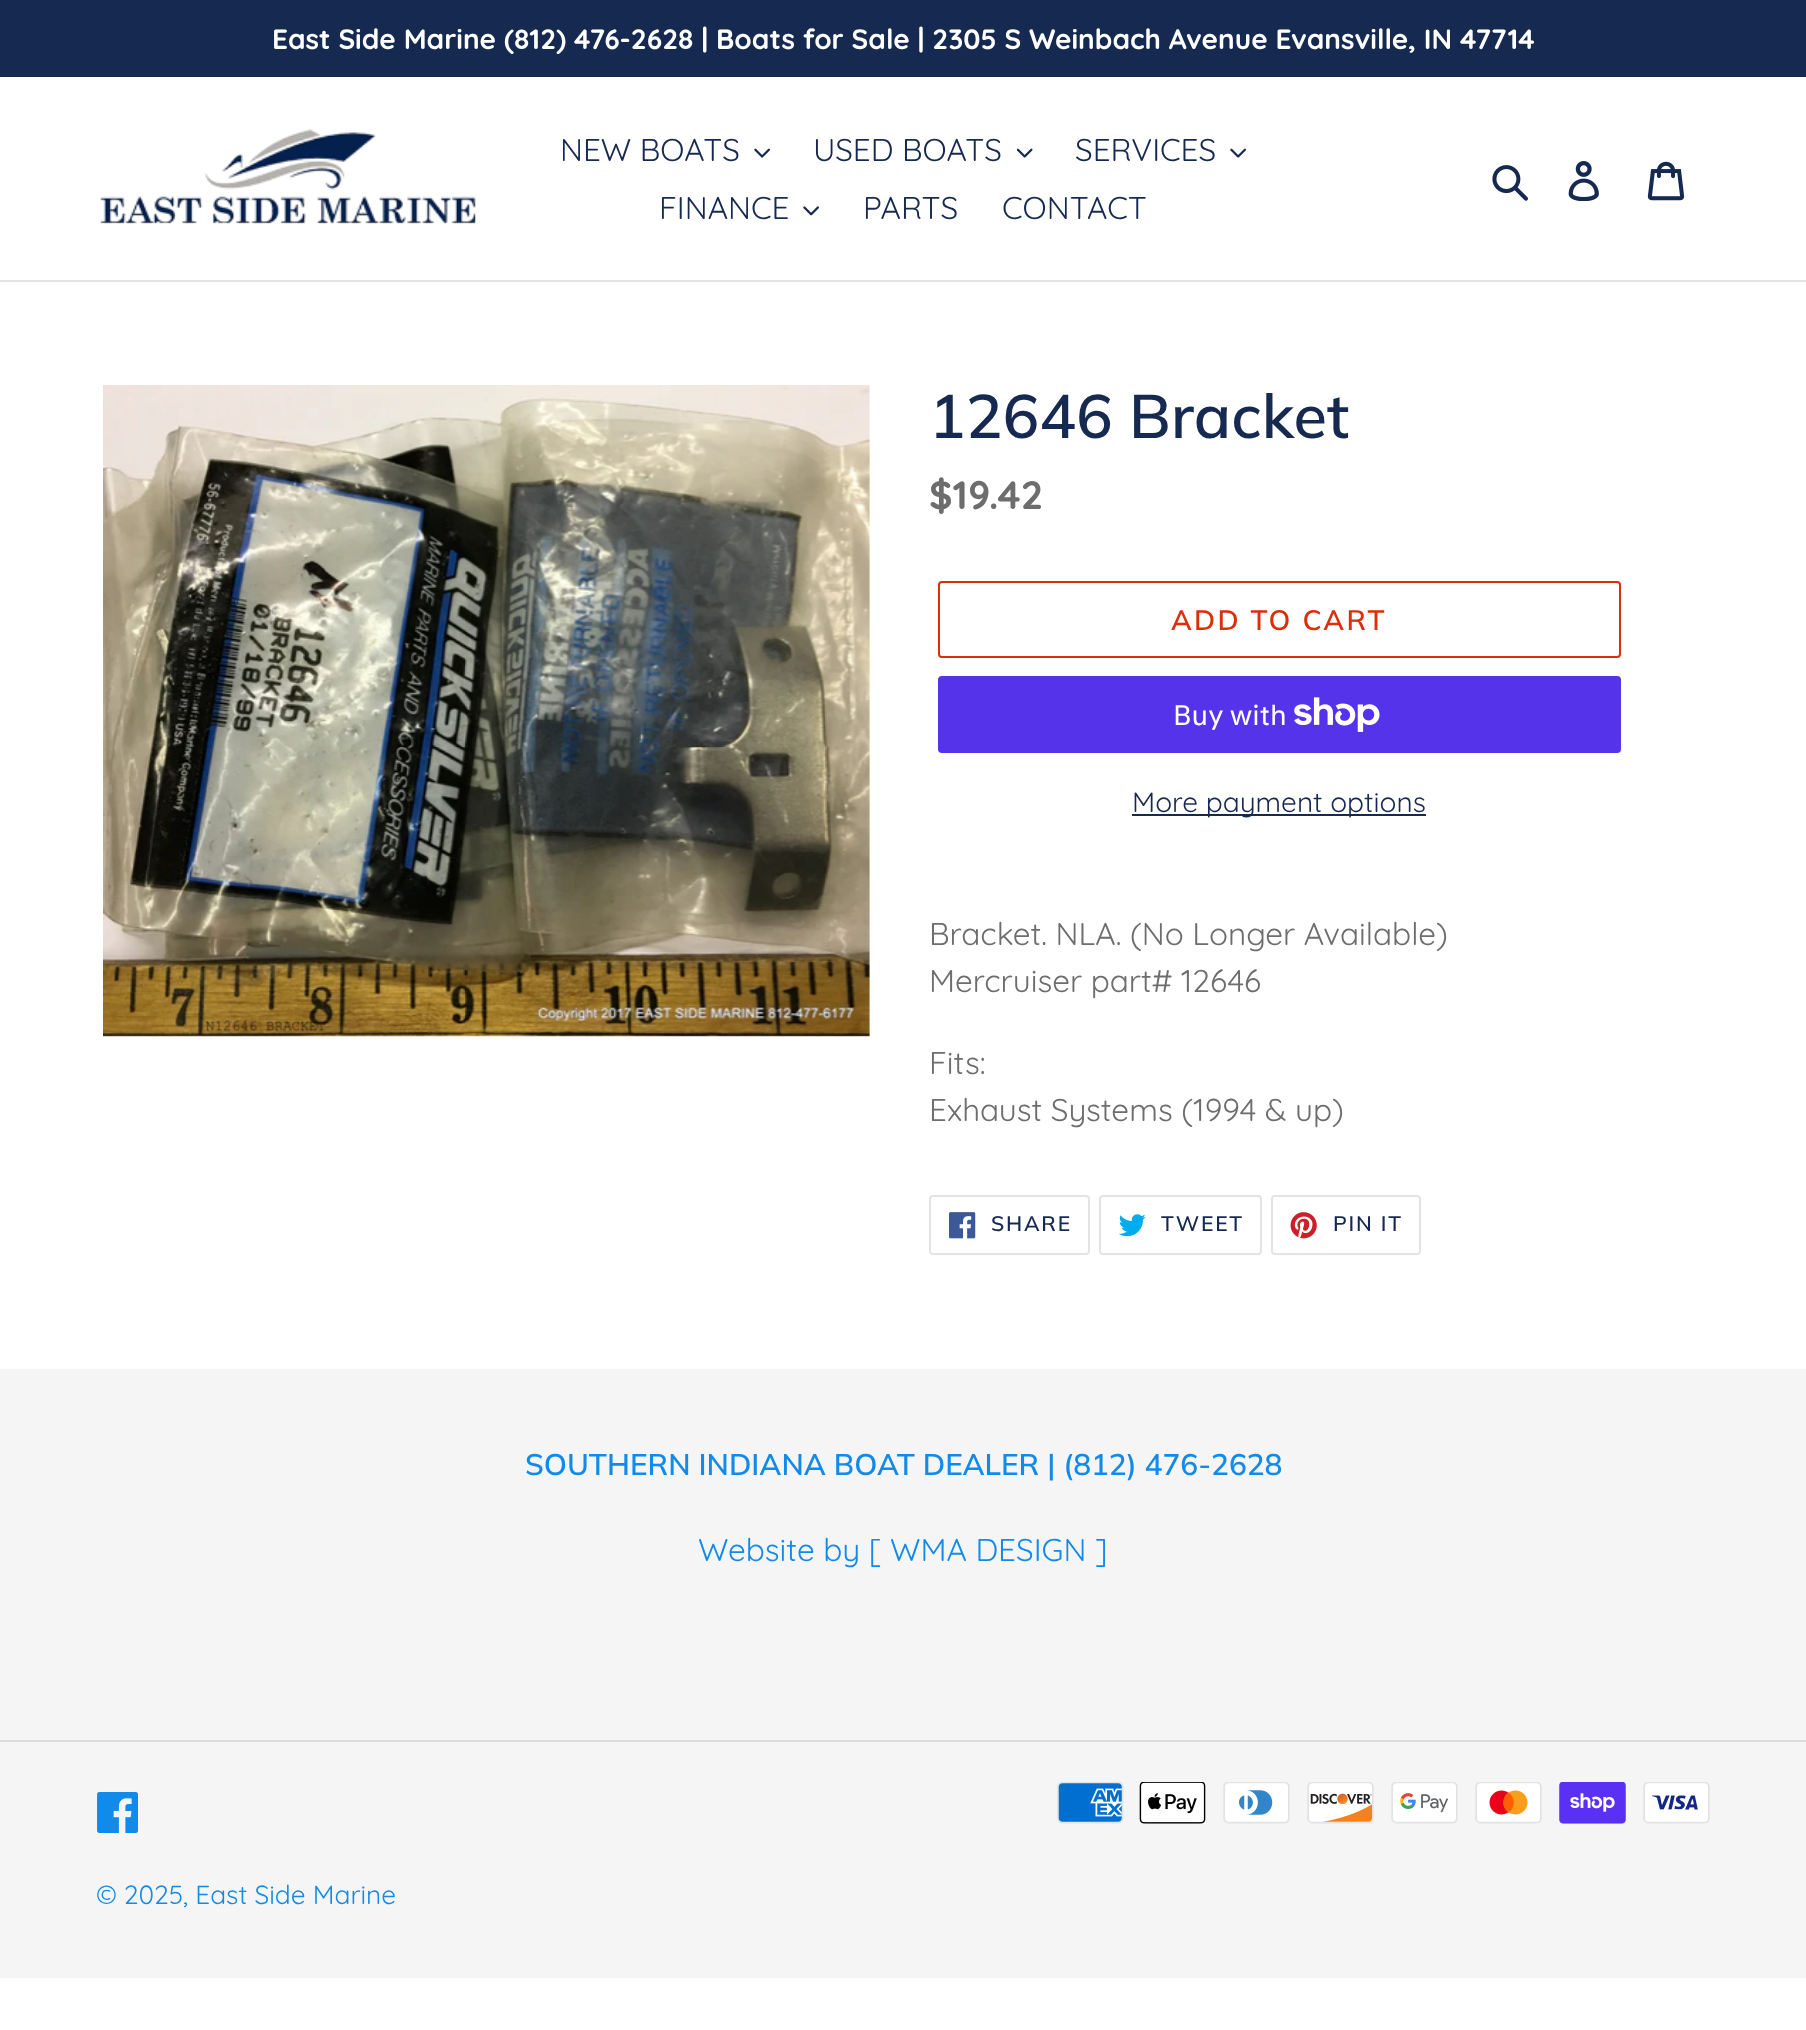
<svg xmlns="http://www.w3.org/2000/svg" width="1806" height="2030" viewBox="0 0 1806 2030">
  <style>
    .t1 { font: bold 28px Quicksand; fill: #fff; }
    .t2 { font: 31.5px Quicksand; fill: #162950; }
    .t3 { font: 600 61.25px Muli; fill: #162950; }
    .t4 { font: bold 39.5px Quicksand; fill: #6d6d6d; }
    .t5 { font: 600 28px Muli; letter-spacing: 2.25px; fill: #da2f0c; }
    .t6 { font: 28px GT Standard; fill: #fff; }
    .t7 { font: 28px Quicksand; fill: #162950; }
    .t8 { font: 31.5px Quicksand; fill: #6d6d6d; }
    .t9 { font: 600 21px Muli; letter-spacing: 1.75px; fill: #162950; }
    .t10 { font: 600 29.75px Muli; fill: #128aea; }
    .t11 { font: 31.5px Quicksand; fill: #128aea; }
    .t12 { font: 26.25px Quicksand; fill: #128aea; }
  </style>
  <rect width="100%" height="100%" fill="#fff"/>
  <rect x="0" y="0" width="1806" height="77" fill="#162950"/>
  <text x="272" y="49" class="t1">East Side Marine (812) 476-2628 | Boats for Sale | 2305 S Weinbach Avenue Evansville, IN 47714</text>
  <rect x="0" y="280" width="1806" height="2" fill="#e4e4e4"/>
  <image x="100" y="129" width="376" height="95" href="images/1.png"/>
  <text x="560" y="161" class="t2">NEW BOATS</text>
  <image x="754" y="148" width="16" height="10" href="images/2.png"/>
  <text x="813" y="161" class="t2">USED BOATS</text>
  <image x="1017" y="148" width="16" height="10" href="images/3.png"/>
  <text x="1075" y="161" class="t2">SERVICES</text>
  <image x="1230" y="148" width="16" height="10" href="images/2.png"/>
  <text x="659" y="219" class="t2">FINANCE</text>
  <image x="803" y="206" width="16" height="10" href="images/4.png"/>
  <text x="863" y="219" class="t2">PARTS</text>
  <text x="1002" y="219" class="t2">CONTACT</text>
  <image x="1492" y="165" width="36" height="36" href="images/5.png"/>
  <image x="1568" y="161" width="31" height="40" href="images/6.png"/>
  <image x="1647" y="161" width="38" height="40" href="images/7.png"/>
  <image x="103" y="385" width="767" height="652" href="images/8.png"/>
  <text x="929" y="438" class="t3">12646 Bracket</text>
  <text x="929" y="509" class="t4">$19.42</text>
  <rect x="939" y="582" width="681" height="75" rx="3" fill="none" stroke="#da2f0c" stroke-width="2"/>
  <text x="1171" y="630" class="t5">ADD TO CART</text>
  <rect x="938" y="676" width="683" height="77" rx="4" fill="#5433eb"/>
  <text x="1173" y="725" class="t6">Buy with</text>
  <image x="1294" y="697" width="86" height="35" href="images/9.png"/>
  <rect x="1132" y="814" width="294" height="2" fill="#162950"/>
  <text x="1132" y="812" class="t7">More payment options</text>
  <text x="929" y="945" class="t8">Bracket. NLA. (No Longer Available)</text>
  <text x="929" y="992" class="t8">Mercruiser part# 12646</text>
  <text x="929" y="1074" class="t8">Fits:</text>
  <text x="929" y="1121" class="t8">Exhaust Systems (1994 &amp; up)</text>
  <rect x="930" y="1196" width="159" height="58" rx="3" fill="none" stroke="#e4e4e4" stroke-width="2"/>
  <image x="949" y="1212" width="27" height="27" href="images/10.png"/>
  <text x="991" y="1231" class="t9">SHARE</text>
  <rect x="1100" y="1196" width="161" height="58" rx="3" fill="none" stroke="#e4e4e4" stroke-width="2"/>
  <image x="1118" y="1214" width="28" height="23" href="images/11.png"/>
  <text x="1161" y="1231" class="t9">TWEET</text>
  <rect x="1272" y="1196" width="148" height="58" rx="3" fill="none" stroke="#e4e4e4" stroke-width="2"/>
  <image x="1290" y="1212" width="27" height="27" href="images/12.png"/>
  <text x="1333" y="1231" class="t9">PIN IT</text>
  <rect x="0" y="1369" width="1806" height="609" fill="#f5f5f5"/>
  <text x="525" y="1475" class="t10">SOUTHERN INDIANA BOAT DEALER | (812) 476-2628</text>
  <text x="698" y="1561" class="t11">Website by [ WMA DESIGN ]</text>
  <rect x="0" y="1740" width="1806" height="2" fill="#dcdcdc"/>
  <image x="97" y="1792" width="42" height="41" href="images/13.png"/>
  <image x="1057" y="1782" width="67" height="42" href="images/14.png"/>
  <image x="1139" y="1782" width="67" height="42" href="images/15.png"/>
  <image x="1223" y="1782" width="67" height="42" href="images/16.png"/>
  <image x="1307" y="1782" width="67" height="42" href="images/17.png"/>
  <image x="1391" y="1782" width="67" height="42" href="images/18.png"/>
  <image x="1475" y="1782" width="67" height="42" href="images/19.png"/>
  <image x="1559" y="1782" width="67" height="42" href="images/20.png"/>
  <image x="1643" y="1782" width="67" height="42" href="images/21.png"/>
  <text x="96" y="1904" class="t12">© 2025, East Side Marine</text>
</svg>
